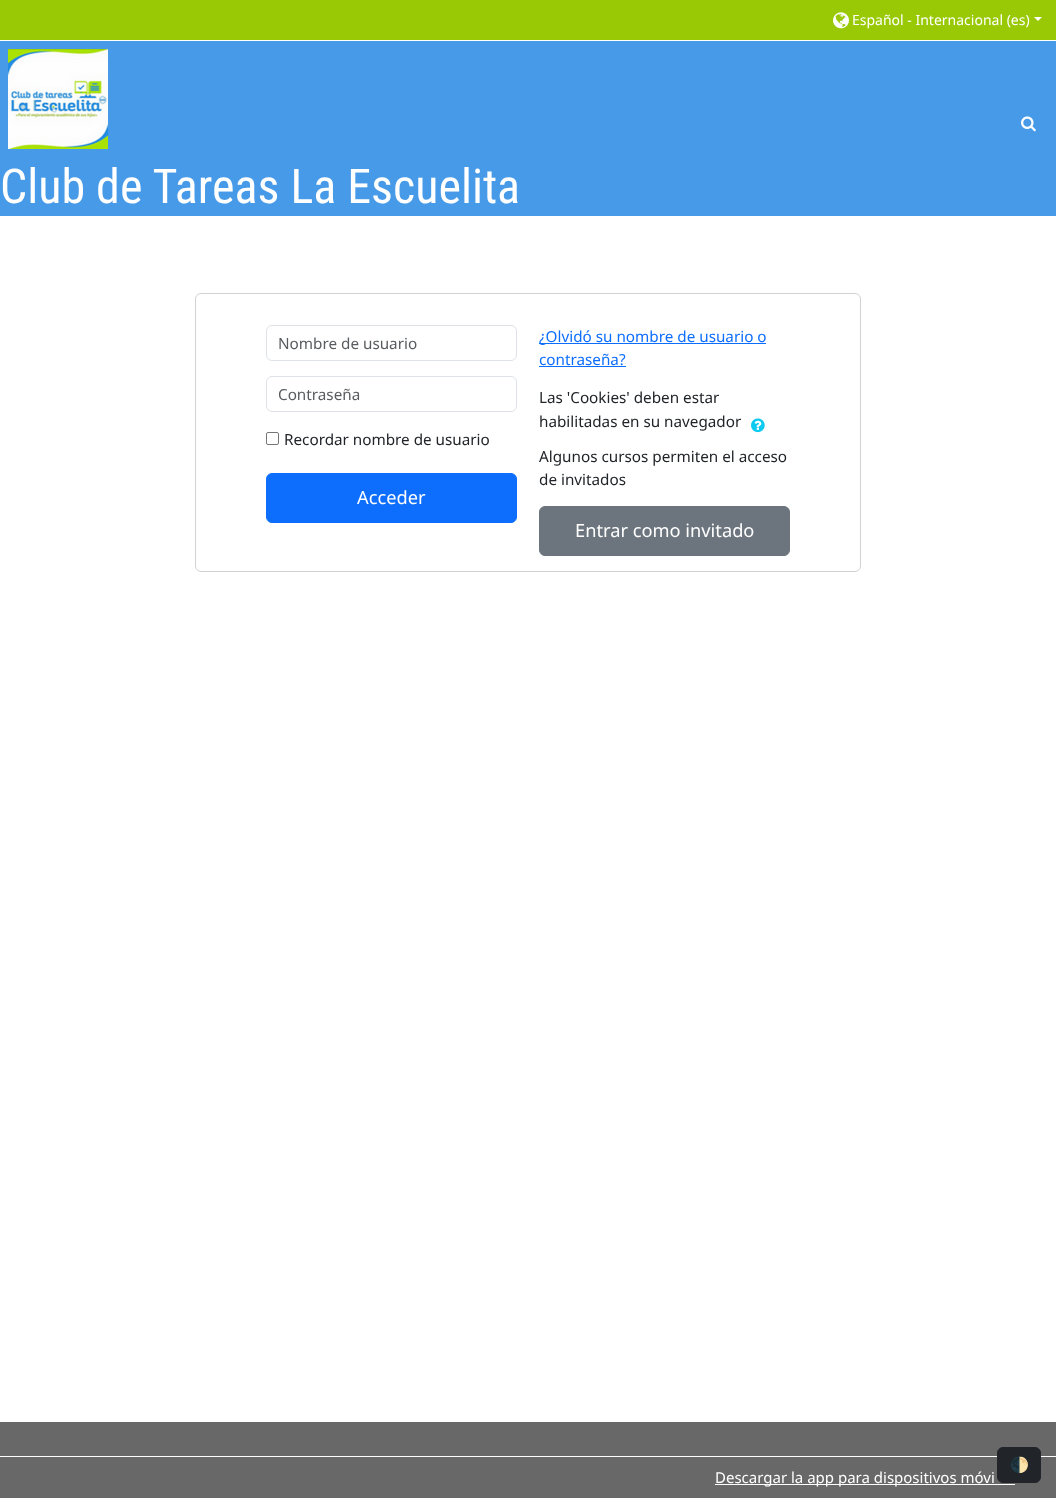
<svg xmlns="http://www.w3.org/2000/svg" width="1056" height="1498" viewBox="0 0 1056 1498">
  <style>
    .t1 { font: 14px Noto Sans; fill: #fff; }
    .t2 { font: 48px Roboto Condensed; fill: #fff; }
    .t3 { font: 15.25px Noto Sans; fill: #595c5f; }
    .t4 { font: 15.25px Noto Sans; fill: #212529; }
    .t5 { font: 18.25px Noto Sans; fill: #fff; }
    .t6 { font: 15.25px Noto Sans; fill: #0d6efd; }
    .t7 { font: 15px Noto Sans; fill: #fff; }
    .t8 { font: 15.25px Noto Color Emoji; fill: #fff; }
  </style>
  <rect width="100%" height="100%" fill="#fff"/>
  <rect x="0" y="41" width="1056" height="175" fill="#469ae7"/>
  <rect x="0" y="0" width="1056" height="40" fill="#98c904"/>
  <image x="833" y="12" width="16" height="17" href="images/1.png"/>
  <text x="852" y="25" class="t1">Español - Internacional (es)</text>
  <path d="M1034 17H1042L1038 21Z" fill="#fff"/>
  <image x="1021" y="116" width="15" height="16" href="images/2.png"/>
  <image x="8" y="49" width="100" height="100" href="images/3.png"/>
  <text x="0" y="203" class="t2">Club de Tareas La Escuelita</text>
  <rect x="195.5" y="293.5" width="665" height="278" rx="5.5" fill="none" stroke="#d2d2d2"/>
  <rect x="266.5" y="325.5" width="250" height="35" rx="5.5" fill="none" stroke="#dee2e6"/>
  <text x="278" y="349" class="t3">Nombre de usuario</text>
  <rect x="266.5" y="376.5" width="250" height="35" rx="5.5" fill="none" stroke="#dee2e6"/>
  <text x="278" y="400" class="t3">Contraseña</text>
  <rect x="266.5" y="432.5" width="12" height="12" rx="1.5" fill="none" stroke="#767676"/>
  <text x="284" y="445" class="t4">Recordar nombre de usuario</text>
  <rect x="266.5" y="473.5" width="250" height="49" rx="5.5" fill="#0d6efd" stroke="#0d6efd"/>
  <text x="357" y="504" class="t5">Acceder</text>
  <rect x="539" y="343" width="227" height="1" fill="#0d6efd"/>
  <text x="539" y="342" class="t6">¿Olvidó su nombre de usuario o</text>
  <text x="539" y="365" class="t6">contraseña?</text>
  <rect x="539" y="366" width="87" height="1" fill="#0d6efd"/>
  <text x="539" y="403" class="t4">Las 'Cookies' deben estar</text>
  <text x="539" y="427" class="t4">habilitadas en su navegador</text>
  <image x="751" y="418" width="14" height="15" href="images/4.png"/>
  <text x="539" y="462" class="t4">Algunos cursos permiten el acceso</text>
  <text x="539" y="485" class="t4">de invitados</text>
  <rect x="539.5" y="506.5" width="250" height="49" rx="5.5" fill="#6c757d" stroke="#6c757d"/>
  <text x="575" y="537" class="t5">Entrar como invitado</text>
  <rect x="0" y="1422" width="1056" height="76" fill="#686868"/>
  <rect x="0" y="1456" width="1056" height="1" fill="#fff"/>
  <rect x="715" y="1484" width="300" height="1" fill="#fff"/>
  <text x="715" y="1483" class="t7">Descargar la app para dispositivos móvi</text>
  <rect x="997.5" y="1447.5" width="43" height="35" rx="5.5" fill="#212529" stroke="#212529"/>
  <text x="1010" y="1470" class="t8">🌓</text>
</svg>
